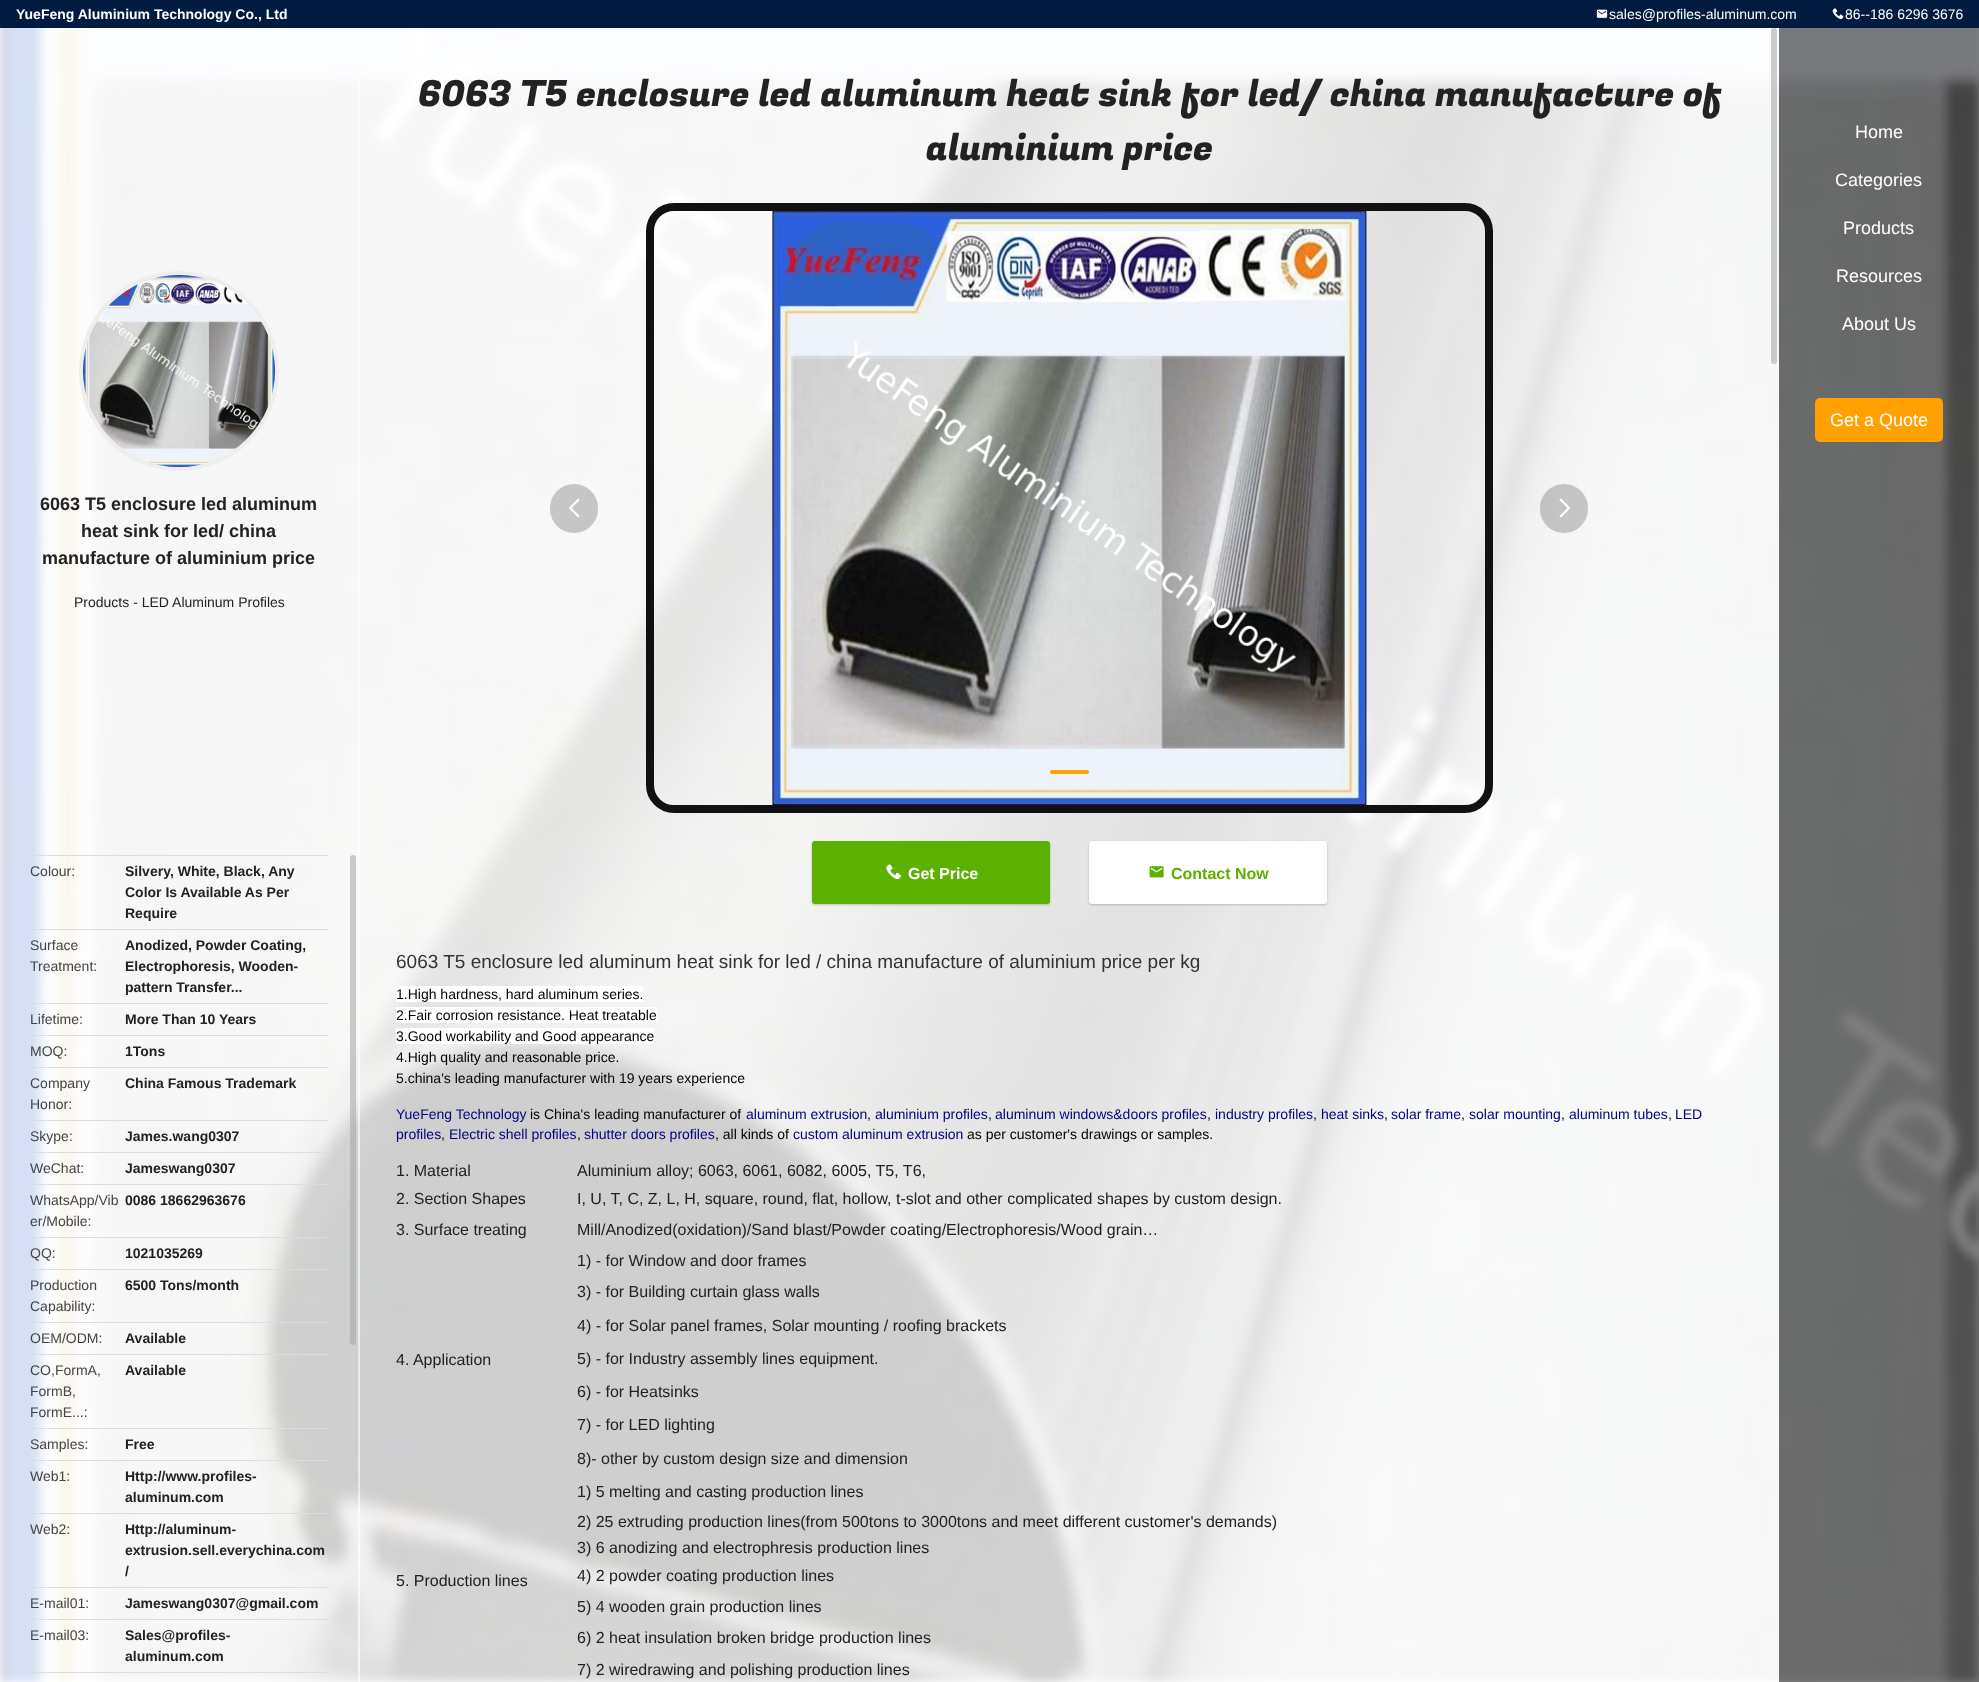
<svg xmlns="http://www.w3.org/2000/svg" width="1979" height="1682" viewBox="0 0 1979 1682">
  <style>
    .t1 { font: bold 14px Liberation Sans; fill: #fff; }
    .t2 { font: 14px Liberation Sans; fill: #fff; }
    .t3 { font: 36px Fugaz One; fill: #222; }
    .t4 { font: bold 16px Liberation Sans; fill: #fff; }
    .t5 { font: bold 16px Liberation Sans; fill: #5cb000; }
    .t6 { font: 19px Liberation Sans; fill: #333; }
    .t7 { font: 14px Liberation Sans; fill: #000; }
    .t8 { font: 14px Liberation Sans; fill: #000080; }
    .t9 { font: 16px Liberation Sans; fill: #222; }
    .t10 { font: 18px Liberation Sans; fill: #fff; }
    .t11 { font: bold 18px Liberation Sans; fill: #222; }
    .t12 { font: 14px Liberation Sans; fill: #222; }
    .t13 { font: 14px Liberation Sans; fill: #444; }
    .t14 { font: bold 14px Liberation Sans; fill: #222; }
  </style>
  <rect width="100%" height="100%" fill="#fff"/>
  <rect x="0" y="0" width="1979" height="28" fill="#001b3f"/>
  <text x="16" y="19" class="t1">YueFeng Aluminium Technology Co., Ltd</text>
  <image x="1596" y="9" width="12" height="9" href="images/1.png"/>
  <text x="1609" y="19" class="t2">sales@profiles-aluminum.com</text>
  <image x="1832" y="8" width="12" height="12" href="images/2.png"/>
  <text x="1845" y="19" class="t2">86--186 6296 3676</text>
  <image x="0" y="28" width="1979" height="1654" href="images/3.png"/>
  <rect x="360" y="28" width="1419" height="1654" fill="#ffffffcc"/>
  <text x="418" y="106" class="t3">6063 T5 enclosure led aluminum heat sink for led/ china manufacture of</text>
  <text x="926" y="160" class="t3">aluminium price</text>
  <rect x="1771" y="28" width="6" height="336" rx="3" fill="#aaaaaa99"/>
  <rect x="650" y="207" width="839" height="602" rx="24" fill="none" stroke="#111" stroke-width="8"/>
  <image x="772" y="211" width="595" height="594" href="images/4.png"/>
  <rect x="550" y="484" width="48" height="49" rx="24" fill="#c6c6c6"/>
  <image x="569" y="498" width="11" height="20" href="images/5.png"/>
  <rect x="1540" y="484" width="48" height="49" rx="24" fill="#00000033"/>
  <image x="1559" y="498" width="11" height="20" href="images/6.png"/>
  <rect x="1050" y="770" width="39" height="4" rx="2" fill="#ffa100"/>
  <rect x="812" y="842" width="238" height="63" rx="3" fill="#00000033" filter="blur(1px)"/>
  <rect x="812" y="841" width="238" height="63" rx="3" fill="#5cb000"/>
  <image x="886" y="864" width="15" height="16" href="images/7.png"/>
  <text x="908" y="879" class="t4">Get Price</text>
  <rect x="1089" y="842" width="238" height="63" rx="3" fill="#00000033" filter="blur(1px)"/>
  <rect x="1089" y="841" width="238" height="63" rx="3" fill="#fff"/>
  <image x="1149" y="866" width="15" height="12" href="images/8.png"/>
  <text x="1171" y="879" class="t5">Contact Now</text>
  <text x="396" y="968" class="t6">6063 T5 enclosure led aluminum heat sink for led / china manufacture of aluminium price per kg</text>
  <rect x="396" y="986" width="247" height="16" fill="#fff"/>
  <text x="396" y="999" class="t7">1.High hardness, hard aluminum series.</text>
  <rect x="396" y="1007" width="261" height="16" fill="#fff"/>
  <text x="396" y="1020" class="t7">2.Fair corrosion resistance. Heat treatable</text>
  <rect x="396" y="1028" width="258" height="16" fill="#fff"/>
  <text x="396" y="1041" class="t7">3.Good workability and Good appearance</text>
  <text x="396" y="1062" class="t7">4.High quality and reasonable price.</text>
  <text x="396" y="1083" class="t7">5.china's leading manufacturer with 19 years experience</text>
  <text x="396" y="1119" class="t8">YueFeng Technology</text>
  <text x="530" y="1119" class="t7">is China's leading manufacturer of</text>
  <text x="746" y="1119" class="t8">aluminum extrusion</text>
  <text x="867" y="1119" class="t7">,</text>
  <text x="875" y="1119" class="t8">aluminium profiles</text>
  <text x="988" y="1119" class="t7">,</text>
  <text x="995" y="1119" class="t8">aluminum windows&amp;doors profiles</text>
  <text x="1207" y="1119" class="t7">,</text>
  <text x="1215" y="1119" class="t8">industry profiles</text>
  <text x="1313" y="1119" class="t7">,</text>
  <text x="1321" y="1119" class="t8">heat sinks</text>
  <text x="1384" y="1119" class="t7">,</text>
  <text x="1391" y="1119" class="t8">solar frame</text>
  <text x="1461" y="1119" class="t7">,</text>
  <text x="1469" y="1119" class="t8">solar mounting</text>
  <text x="1561" y="1119" class="t7">,</text>
  <text x="1569" y="1119" class="t8">aluminum tubes</text>
  <text x="1668" y="1119" class="t7">,</text>
  <text x="1675" y="1119" class="t8">LED</text>
  <text x="396" y="1139" class="t8">profiles</text>
  <text x="441" y="1139" class="t7">,</text>
  <text x="449" y="1139" class="t8">Electric shell profiles</text>
  <text x="577" y="1139" class="t7">,</text>
  <text x="584" y="1139" class="t8">shutter doors profiles</text>
  <text x="715" y="1139" class="t7">, all kinds of</text>
  <text x="793" y="1139" class="t8">custom aluminum extrusion</text>
  <text x="967" y="1139" class="t7">as per customer's drawings or samples.</text>
  <text x="396" y="1176" class="t9">1. Material</text>
  <text x="577" y="1176" class="t9">Aluminium alloy; 6063, 6061, 6082, 6005, T5, T6,</text>
  <text x="396" y="1204" class="t9">2. Section Shapes</text>
  <text x="577" y="1204" class="t9">I, U, T, C, Z, L, H, square, round, flat, hollow, t-slot and other complicated shapes by custom design.</text>
  <text x="396" y="1235" class="t9">3. Surface treating</text>
  <text x="577" y="1235" class="t9">Mill/Anodized(oxidation)/Sand blast/Powder coating/Electrophoresis/Wood grain…</text>
  <text x="577" y="1266" class="t9">1) - for Window and door frames</text>
  <text x="396" y="1365" class="t9">4. Application</text>
  <text x="577" y="1297" class="t9">3) - for Building curtain glass walls</text>
  <text x="577" y="1331" class="t9">4) - for Solar panel frames, Solar mounting / roofing brackets</text>
  <text x="577" y="1364" class="t9">5) - for Industry assembly lines equipment.</text>
  <text x="577" y="1397" class="t9">6) - for Heatsinks</text>
  <text x="577" y="1430" class="t9">7) - for LED lighting</text>
  <text x="577" y="1464" class="t9">8)- other by custom design size and dimension</text>
  <text x="577" y="1497" class="t9">1) 5 melting and casting production lines</text>
  <text x="396" y="1586" class="t9">5. Production lines</text>
  <text x="577" y="1527" class="t9">2) 25 extruding production lines(from 500tons to 3000tons and meet different customer's demands)</text>
  <text x="577" y="1553" class="t9">3) 6 anodizing and electrophresis production lines</text>
  <text x="577" y="1581" class="t9">4) 2 powder coating production lines</text>
  <text x="577" y="1612" class="t9">5) 4 wooden grain production lines</text>
  <text x="577" y="1643" class="t9">6) 2 heat insulation broken bridge production lines</text>
  <text x="577" y="1675" class="t9">7) 2 wiredrawing and polishing production lines</text>
  <rect x="1779" y="28" width="200" height="1654" fill="#00000080"/>
  <text x="1855" y="138" class="t10">Home</text>
  <text x="1835" y="186" class="t10">Categories</text>
  <text x="1843" y="234" class="t10">Products</text>
  <text x="1836" y="282" class="t10">Resources</text>
  <text x="1842" y="330" class="t10">About Us</text>
  <rect x="1815" y="398" width="128" height="44" rx="5" fill="#ffa100"/>
  <text x="1830" y="426" class="t10">Get a Quote</text>
  <rect x="0" y="28" width="360" height="1654" fill="#ffffffcc"/>
  <rect x="358" y="75" width="2" height="1607" fill="#ffffff99"/>
  <circle cx="179" cy="371" r="98" fill="none" stroke="#eee" stroke-width="4"/>
  <image x="83" y="275" width="192" height="192" href="images/9.png"/>
  <text x="40" y="510" class="t11">6063 T5 enclosure led aluminum</text>
  <text x="81" y="537" class="t11">heat sink for led/ china</text>
  <text x="42" y="564" class="t11">manufacture of aluminium price</text>
  <text x="74" y="607" class="t12">Products - LED Aluminum Profiles</text>
  <rect x="30" y="855" width="298" height="1" fill="#ddd"/>
  <text x="30" y="876" class="t13">Colour:</text>
  <text x="125" y="876" class="t14">Silvery, White, Black, Any</text>
  <text x="125" y="897" class="t14">Color Is Available As Per</text>
  <text x="125" y="918" class="t14">Require</text>
  <rect x="30" y="929" width="298" height="1" fill="#ddd"/>
  <text x="30" y="950" class="t13">Surface</text>
  <text x="30" y="971" class="t13">Treatment:</text>
  <text x="125" y="950" class="t14">Anodized, Powder Coating,</text>
  <text x="125" y="971" class="t14">Electrophoresis, Wooden-</text>
  <text x="125" y="992" class="t14">pattern Transfer...</text>
  <rect x="30" y="1003" width="298" height="1" fill="#ddd"/>
  <text x="30" y="1024" class="t13">Lifetime:</text>
  <text x="125" y="1024" class="t14">More Than 10 Years</text>
  <rect x="30" y="1035" width="298" height="1" fill="#ddd"/>
  <text x="30" y="1056" class="t13">MOQ:</text>
  <text x="125" y="1056" class="t14">1Tons</text>
  <rect x="30" y="1067" width="298" height="1" fill="#ddd"/>
  <text x="30" y="1088" class="t13">Company</text>
  <text x="30" y="1109" class="t13">Honor:</text>
  <text x="125" y="1088" class="t14">China Famous Trademark</text>
  <rect x="30" y="1120" width="298" height="1" fill="#ddd"/>
  <text x="30" y="1141" class="t13">Skype:</text>
  <text x="125" y="1141" class="t14">James.wang0307</text>
  <rect x="30" y="1152" width="298" height="1" fill="#ddd"/>
  <text x="30" y="1173" class="t13">WeChat:</text>
  <text x="125" y="1173" class="t14">Jameswang0307</text>
  <rect x="30" y="1184" width="298" height="1" fill="#ddd"/>
  <text x="30" y="1205" class="t13">WhatsApp/Vib</text>
  <text x="30" y="1226" class="t13">er/Mobile:</text>
  <text x="125" y="1205" class="t14">0086 18662963676</text>
  <rect x="30" y="1237" width="298" height="1" fill="#ddd"/>
  <text x="30" y="1258" class="t13">QQ:</text>
  <text x="125" y="1258" class="t14">1021035269</text>
  <rect x="30" y="1269" width="298" height="1" fill="#ddd"/>
  <text x="30" y="1290" class="t13">Production</text>
  <text x="30" y="1311" class="t13">Capability:</text>
  <text x="125" y="1290" class="t14">6500 Tons/month</text>
  <rect x="30" y="1322" width="298" height="1" fill="#ddd"/>
  <text x="30" y="1343" class="t13">OEM/ODM:</text>
  <text x="125" y="1343" class="t14">Available</text>
  <rect x="30" y="1354" width="298" height="1" fill="#ddd"/>
  <text x="30" y="1375" class="t13">CO,FormA,</text>
  <text x="30" y="1396" class="t13">FormB,</text>
  <text x="30" y="1417" class="t13">FormE...:</text>
  <text x="125" y="1375" class="t14">Available</text>
  <rect x="30" y="1428" width="298" height="1" fill="#ddd"/>
  <text x="30" y="1449" class="t13">Samples:</text>
  <text x="125" y="1449" class="t14">Free</text>
  <rect x="30" y="1460" width="298" height="1" fill="#ddd"/>
  <text x="30" y="1481" class="t13">Web1:</text>
  <text x="125" y="1481" class="t14">Http://www.profiles-</text>
  <text x="125" y="1502" class="t14">aluminum.com</text>
  <rect x="30" y="1513" width="298" height="1" fill="#ddd"/>
  <text x="30" y="1534" class="t13">Web2:</text>
  <text x="125" y="1534" class="t14">Http://aluminum-</text>
  <text x="125" y="1555" class="t14">extrusion.sell.everychina.com</text>
  <text x="125" y="1576" class="t14">/</text>
  <rect x="30" y="1587" width="298" height="1" fill="#ddd"/>
  <text x="30" y="1608" class="t13">E-mail01:</text>
  <text x="125" y="1608" class="t14">Jameswang0307@gmail.com</text>
  <rect x="30" y="1619" width="298" height="1" fill="#ddd"/>
  <text x="30" y="1640" class="t13">E-mail03:</text>
  <text x="125" y="1640" class="t14">Sales@profiles-</text>
  <text x="125" y="1661" class="t14">aluminum.com</text>
  <rect x="30" y="1672" width="298" height="1" fill="#ddd"/>
  <rect x="350" y="855" width="6" height="490" rx="3" fill="#aaaaaa99"/>
</svg>
